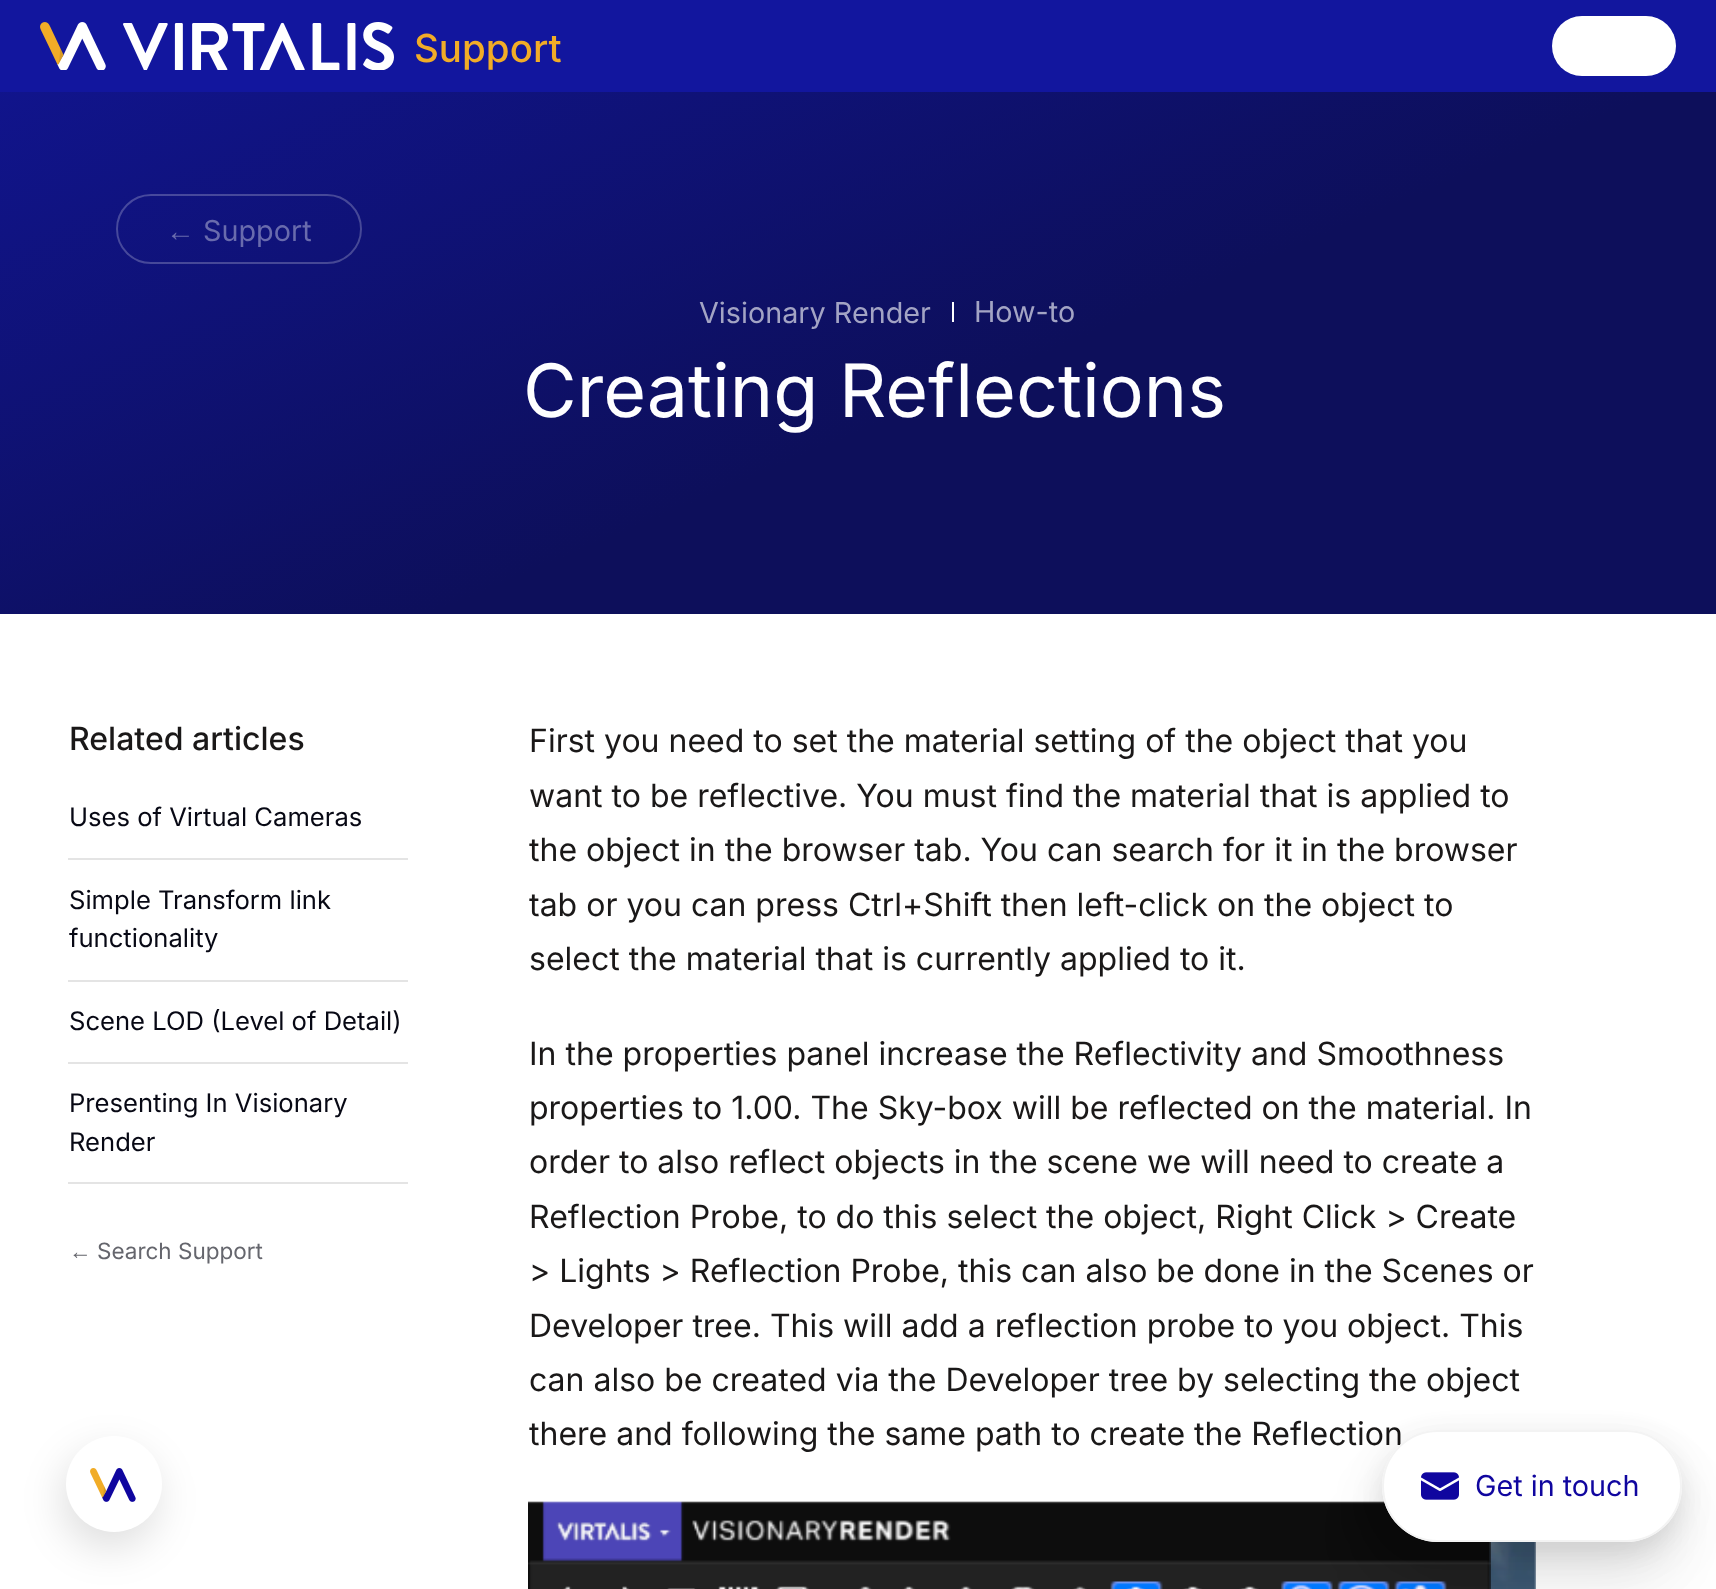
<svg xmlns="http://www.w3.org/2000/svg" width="1716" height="1589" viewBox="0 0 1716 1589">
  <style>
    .t1 { font: 500 38.5px Inter; fill: #f1ac27; }
    .t2 { font: 28.75px Liberation Sans; fill: #696bad; }
    .t3 { font: 28.75px Inter; fill: #696bad; }
    .t4 { font: 28.75px Inter; fill: #a3a4c4; }
    .t5 { font: 73.5px Inter; fill: #fefeff; }
    .t6 { font: 500 32px Inter; fill: #1a1818; }
    .t7 { font: 25.6px Inter; fill: #070814; }
    .t8 { font: 22.5px Liberation Sans; fill: #65666d; }
    .t9 { font: 22.5px Inter; fill: #65666d; }
    .t10 { font: 32px Inter; fill: #1a1818; }
    .t11 { font: 28.75px Inter; fill: #10069f; }
  </style>
  <defs>
    <linearGradient id="g1" gradientUnits="userSpaceOnUse" x1="586" y1="-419" x2="1130" y2="863"><stop offset="0" stop-color="#12169e"/><stop offset="0.64" stop-color="#0d0f5b"/></linearGradient>
  </defs>
  <rect width="100%" height="100%" fill="#fff"/>
  <rect x="0" y="0" width="1716" height="92" fill="#12169e"/>
  <image x="40" y="22" width="354" height="48" href="images/1.png"/>
  <text x="414" y="62" class="t1">Support</text>
  <rect x="1552" y="16" width="124" height="60" rx="30" fill="#fff"/>
  <rect x="62" y="1452" width="96" height="96" rx="48" fill="#00000021" filter="blur(20px)"/>
  <circle cx="114" cy="1484" r="48" fill="#fff"/>
  <image x="90" y="1468" width="46" height="34" href="images/2.png"/>
  <rect x="0" y="92" width="1716" height="522" fill="url(#g1)"/>
  <rect x="117" y="195" width="244" height="68" rx="34" fill="none" stroke="#ffffff3b" stroke-width="2"/>
  <text x="166" y="241" class="t2">←</text>
  <text x="203" y="241" class="t3">Support</text>
  <text x="699" y="323" class="t4">Visionary Render</text>
  <rect x="952" y="302" width="2" height="20" fill="#fff"/>
  <text x="974" y="322" class="t4">How-to</text>
  <text x="523" y="417" class="t5">Creating Reflections</text>
  <text x="69" y="750" class="t6">Related articles</text>
  <rect x="68" y="858" width="340" height="2" fill="#e4e4e4"/>
  <text x="69" y="826" class="t7">Uses of Virtual Cameras</text>
  <rect x="68" y="980" width="340" height="2" fill="#e4e4e4"/>
  <text x="69" y="909" class="t7">Simple Transform link</text>
  <text x="69" y="947" class="t7">functionality</text>
  <rect x="68" y="1062" width="340" height="2" fill="#e4e4e4"/>
  <text x="69" y="1030" class="t7">Scene LOD (Level of Detail)</text>
  <rect x="68" y="1182" width="340" height="2" fill="#e4e4e4"/>
  <text x="69" y="1112" class="t7">Presenting In Visionary</text>
  <text x="69" y="1151" class="t7">Render</text>
  <text x="69" y="1259" class="t8">←</text>
  <text x="97" y="1259" class="t9">Search Support</text>
  <text x="529" y="752" class="t10">First you need to set the material setting of the object that you</text>
  <text x="529" y="807" class="t10">want to be reflective. You must find the material that is applied to</text>
  <text x="529" y="861" class="t10">the object in the browser tab. You can search for it in the browser</text>
  <text x="529" y="916" class="t10">tab or you can press Ctrl+Shift then left-click on the object to</text>
  <text x="529" y="970" class="t10">select the material that is currently applied to it.</text>
  <text x="529" y="1065" class="t10">In the properties panel increase the Reflectivity and Smoothness</text>
  <text x="529" y="1119" class="t10">properties to 1.00. The Sky-box will be reflected on the material. In</text>
  <text x="529" y="1173" class="t10">order to also reflect objects in the scene we will need to create a</text>
  <text x="529" y="1228" class="t10">Reflection Probe, to do this select the object, Right Click &gt; Create</text>
  <text x="529" y="1282" class="t10">&gt; Lights &gt; Reflection Probe, this can also be done in the Scenes or</text>
  <text x="529" y="1337" class="t10">Developer tree. This will add a reflection probe to you object. This</text>
  <text x="529" y="1391" class="t10">can also be created via the Developer tree by selecting the object</text>
  <text x="529" y="1445" class="t10">there and following the same path to create the Reflection</text>
  <image x="528" y="1501" width="1008" height="88" href="images/3.png"/>
  <rect x="1382" y="1476" width="300" height="112" rx="56" fill="#0000000f" filter="blur(36px)"/>
  <rect x="1382" y="1454" width="300" height="112" rx="56" fill="#0000000f" filter="blur(25.5px)"/>
  <rect x="1382" y="1444" width="300" height="112" rx="56" fill="#0000000d" filter="blur(18px)"/>
  <rect x="1382" y="1438" width="300" height="112" rx="56" fill="#0000000d" filter="blur(11.5px)"/>
  <rect x="1382" y="1430" width="300" height="112" rx="56" fill="#fff"/>
  <image x="1421" y="1472" width="38" height="28" href="images/4.png"/>
  <rect x="1383" y="1431" width="298" height="110" rx="55" fill="none" stroke="#f3f3f3" stroke-width="2"/>
  <text x="1475" y="1496" class="t11">Get in touch</text>
</svg>
